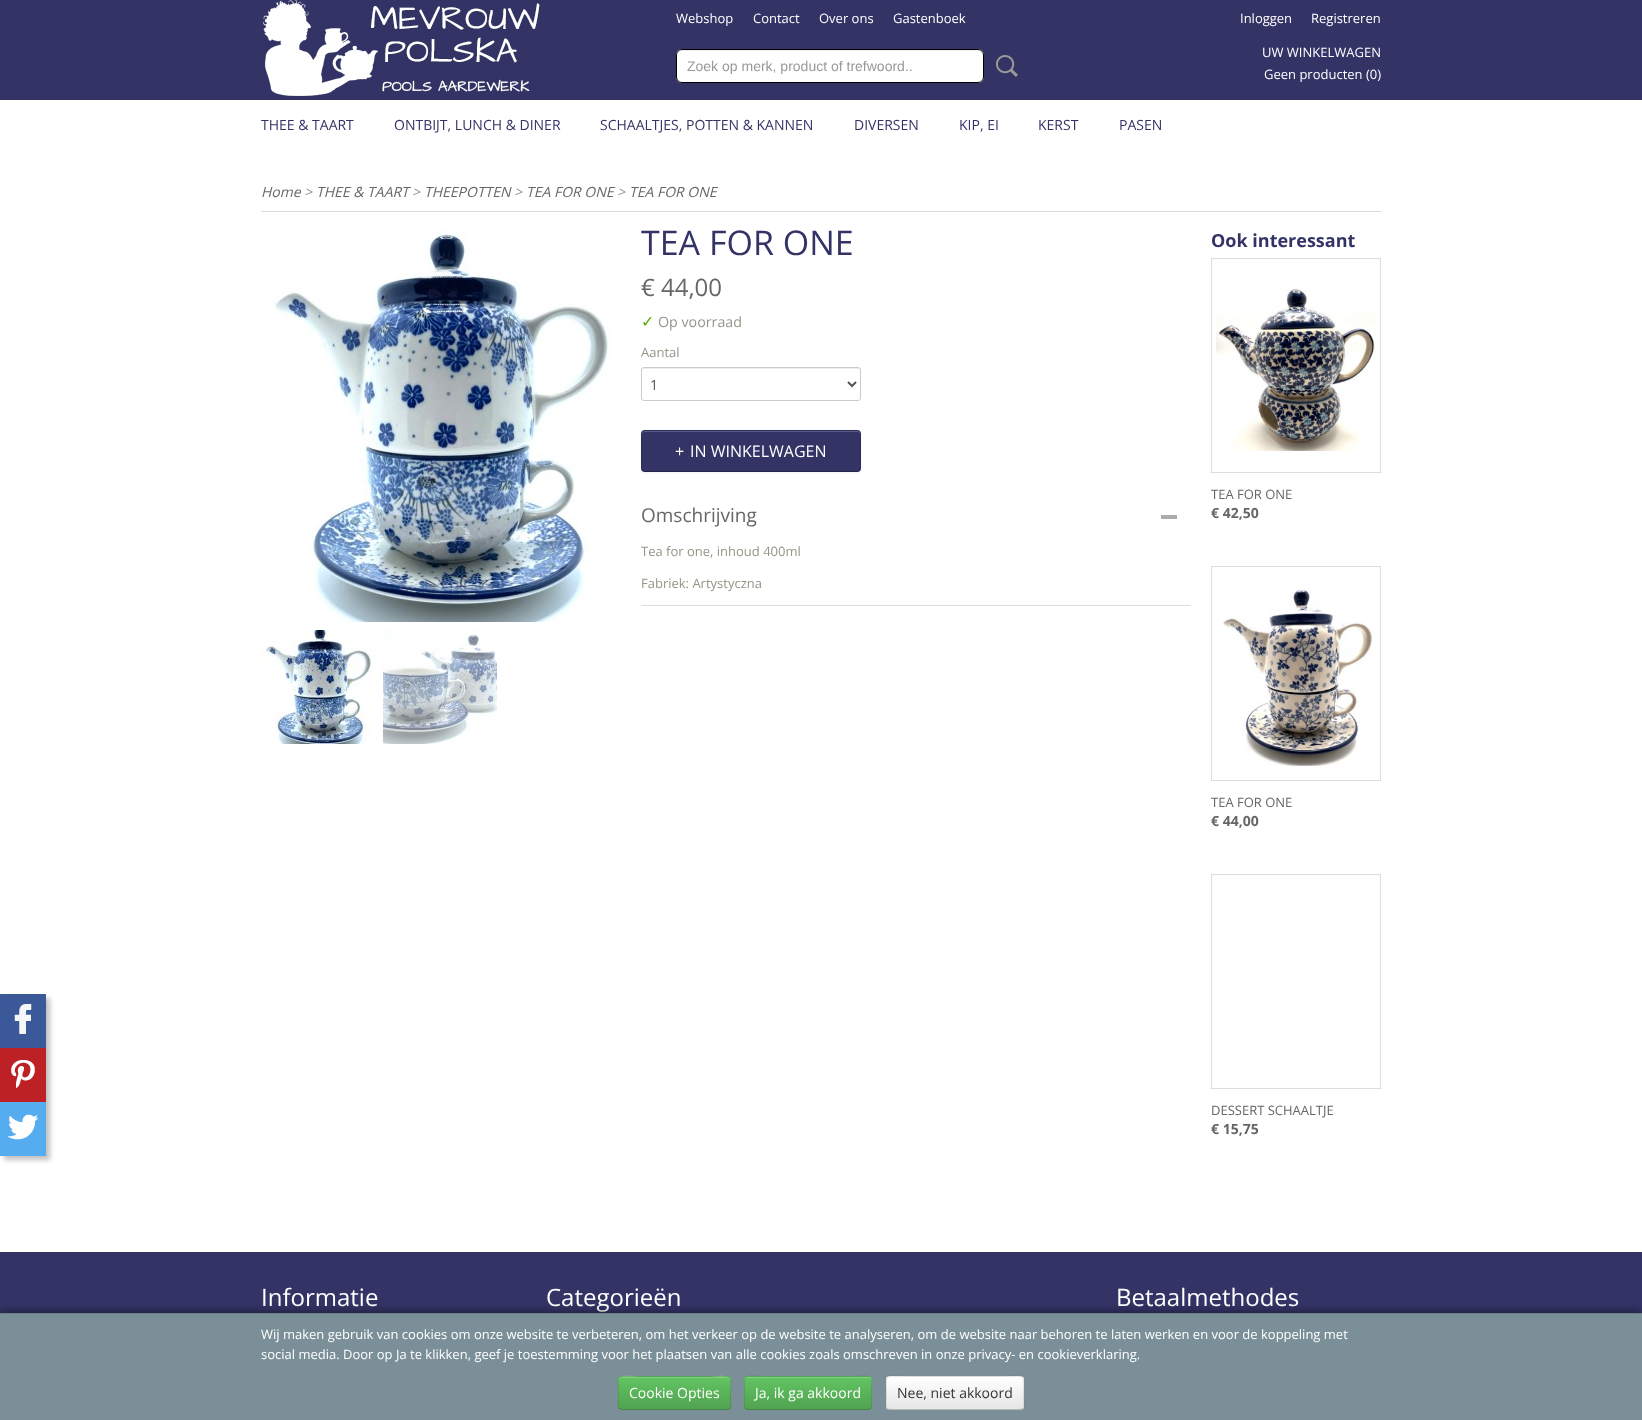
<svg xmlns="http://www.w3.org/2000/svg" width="1642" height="1420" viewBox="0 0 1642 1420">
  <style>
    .t1 { font: 13px Open Sans; fill: #fff; }
    .t2 { font: 14px Liberation Sans; fill: #999; }
    .t3 { font: 14px Open Sans; fill: #336; }
    .t4 { font: italic 14px Open Sans; fill: #666; }
    .t5 { font: italic 14px Open Sans; fill: #969589; }
    .t6 { font: 34px Open Sans; fill: #336; }
    .t7 { font: 24px Open Sans; fill: #666; }
    .t8 { font: 16px DejaVu Sans; fill: #5ea600; }
    .t9 { font: 14.25px Open Sans; fill: #969589; }
    .t10 { font: 13px Open Sans; fill: #969589; }
    .t11 { font: 14px Open Sans; fill: #555; }
    .t12 { font: 16px Open Sans; fill: #fff; }
    .t13 { font: 19px Open Sans; fill: #666; }
    .t14 { font: bold 18px Open Sans; fill: #336; }
    .t15 { font: 13px Open Sans; fill: #666; }
    .t16 { font: bold 14px Open Sans; fill: #666; }
    .t17 { font: 24px Open Sans; fill: #fff; }
    .t18 { font: 14px Open Sans; fill: #fff; }
    .t19 { font: 14px Open Sans; fill: #333; }
  </style>
  <defs>
    <clipPath id="clip1"><rect x="618" y="1376" width="113" height="34" rx="4"/></clipPath>
    <linearGradient id="g1" gradientUnits="userSpaceOnUse" x1="675" y1="1377" x2="675" y2="1409"><stop offset="0" stop-color="#62c462"/><stop offset="1" stop-color="#51a351"/></linearGradient>
    <clipPath id="clip2"><rect x="744" y="1376" width="128" height="34" rx="4"/></clipPath>
    <linearGradient id="g2" gradientUnits="userSpaceOnUse" x1="808" y1="1377" x2="808" y2="1409"><stop offset="0" stop-color="#62c462"/><stop offset="1" stop-color="#51a351"/></linearGradient>
    <clipPath id="clip3"><rect x="886" y="1376" width="138" height="34" rx="4"/></clipPath>
    <linearGradient id="g3" gradientUnits="userSpaceOnUse" x1="955" y1="1377" x2="955" y2="1409"><stop offset="0" stop-color="#fff"/><stop offset="1" stop-color="#e6e6e6"/></linearGradient>
  </defs>
  <rect width="100%" height="100%" fill="#fff"/>
  <rect x="0" y="0" width="1642" height="100" fill="#336"/>
  <image x="263" y="0" width="277" height="96" href="images/1.png"/>
  <text x="676" y="23" class="t1">Webshop</text>
  <text x="753" y="23" class="t1">Contact</text>
  <text x="819" y="23" class="t1">Over ons</text>
  <text x="893" y="23" class="t1">Gastenboek</text>
  <text x="1240" y="23" class="t1">Inloggen</text>
  <text x="1311" y="23" class="t1">Registreren</text>
  <text x="1262" y="57" class="t1">UW WINKELWAGEN</text>
  <text x="1264" y="79" class="t1">Geen producten (0)</text>
  <rect x="676" y="49" width="308" height="34" rx="6" fill="#fff"/>
  <path d="M682 51H978C981 51 983 53 983 56C983 53 981 50 978 50H682C679 50 677 53 677 56C677 53 679 51 682 51Z" fill="#f0f0f0"/>
  <rect x="676.5" y="49.5" width="307" height="33" rx="5.5" fill="none" stroke="#000"/>
  <text x="687" y="71" class="t2">Zoek op merk, product of trefwoord..</text>
  <image x="996" y="55" width="22" height="22" href="images/2.png"/>
  <text x="261" y="130" class="t3">THEE &amp; TAART</text>
  <text x="394" y="130" class="t3">ONTBIJT, LUNCH &amp; DINER</text>
  <text x="600" y="130" class="t3">SCHAALTJES, POTTEN &amp; KANNEN</text>
  <text x="854" y="130" class="t3">DIVERSEN</text>
  <text x="959" y="130" class="t3">KIP, EI</text>
  <text x="1038" y="130" class="t3">KERST</text>
  <text x="1119" y="130" class="t3">PASEN</text>
  <rect x="261" y="211" width="1120" height="1" fill="#ddd"/>
  <text x="261" y="197" class="t4">Home</text>
  <text x="304" y="197" class="t5">&gt;</text>
  <text x="316" y="197" class="t4">THEE &amp; TAART</text>
  <text x="412" y="197" class="t5">&gt;</text>
  <text x="424" y="197" class="t4">THEEPOTTEN</text>
  <text x="514" y="197" class="t5">&gt;</text>
  <text x="526" y="197" class="t4">TEA FOR ONE</text>
  <text x="617" y="197" class="t5">&gt;</text>
  <text x="629" y="197" class="t4">TEA FOR ONE</text>
  <rect x="4" y="998" width="46" height="162" fill="#3232324d" filter="blur(2.5px)"/>
  <rect x="0" y="994" width="46" height="54" fill="#3b5998"/>
  <image x="14" y="1004" width="18" height="30" href="images/3.png"/>
  <rect x="0" y="1048" width="46" height="54" fill="#bd2126"/>
  <image x="11" y="1060" width="24" height="28" href="images/4.png"/>
  <rect x="0" y="1102" width="46" height="54" fill="#55acee"/>
  <image x="8" y="1114" width="30" height="26" href="images/5.png"/>
  <image x="273" y="230" width="337" height="392" href="images/6.png"/>
  <image x="261" y="630" width="112" height="114" href="images/7.png"/>
  <image x="383" y="630" width="114" height="114" href="images/8.png"/>
  <text x="641" y="255" class="t6">TEA FOR ONE</text>
  <text x="641" y="296" class="t7">€ 44,00</text>
  <text x="641" y="327" class="t8">✓</text>
  <text x="658" y="327" class="t9">Op voorraad</text>
  <text x="641" y="357" class="t10">Aantal</text>
  <path d="M644 369H858C859 369 860 370 860 371C860 370 860 368 858 368H644L643 369L642 371C642 370 643 369 644 369Z" fill="#ececec"/>
  <rect x="641.5" y="367.5" width="219" height="33" rx="2.5" fill="none" stroke="#ccc"/>
  <path d="M848 382L852 386L856 382" fill="none" stroke="#555" stroke-width="2"/>
  <text x="650" y="390" class="t11">1</text>
  <rect x="641" y="431" width="220" height="42" rx="4" fill="#0000000d" filter="blur(1px)"/>
  <rect x="641" y="430" width="220" height="42" rx="4" fill="#336"/>
  <path d="M645 432H857C859 432 860 433 860 435V434C860 432 859 431 857 431H645C643 431 642 432 642 434V435C642 433 643 432 645 432Z" fill="#5c5c85"/>
  <path d="M859.5 470.5C859 471 858 471.5 857 471.5H645C644 471.5 643 471 642.5 470.5" fill="none" stroke="#00000040"/>
  <path d="M642.5 470.5C642 470 641.5 469 641.5 468V434C641.5 433 642 432 642.5 431.5C643 431 644 430.5 645 430.5H857C858 430.5 859 431 859.5 431.5C860 432 860.5 433 860.5 434V468C860.5 469 860 470 859.5 470.5" fill="none" stroke="#0000001a"/>
  <text x="675" y="457" class="t12">+</text>
  <text x="690" y="457" class="t12">IN WINKELWAGEN</text>
  <rect x="641" y="605" width="550" height="1" fill="#ddd"/>
  <rect x="1161" y="515" width="16" height="4" fill="#ababab"/>
  <text x="641" y="522" class="t13">Omschrijving</text>
  <text x="641" y="556" class="t10">Tea for one, inhoud 400ml</text>
  <text x="641" y="588" class="t10">Fabriek: Artystyczna</text>
  <text x="1211" y="247" class="t14">Ook interessant</text>
  <rect x="1211.5" y="258.5" width="169" height="214" fill="none" stroke="#ddd"/>
  <image x="1216" y="289" width="160" height="162" href="images/9.png"/>
  <text x="1211" y="499" class="t15">TEA FOR ONE</text>
  <text x="1211" y="518" class="t16">€ 42,50</text>
  <rect x="1211.5" y="566.5" width="169" height="214" fill="none" stroke="#ddd"/>
  <image x="1222" y="581" width="152" height="185" href="images/10.png"/>
  <text x="1211" y="807" class="t15">TEA FOR ONE</text>
  <text x="1211" y="826" class="t16">€ 44,00</text>
  <rect x="1211.5" y="874.5" width="169" height="214" fill="none" stroke="#ddd"/>
  <text x="1211" y="1115" class="t15">DESSERT SCHAALTJE</text>
  <text x="1211" y="1134" class="t16">€ 15,75</text>
  <rect x="0" y="1252" width="1642" height="61" fill="#336"/>
  <text x="261" y="1306" class="t17">Informatie</text>
  <text x="546" y="1306" class="t17">Categorieën</text>
  <text x="1116" y="1306" class="t17">Betaalmethodes</text>
  <rect x="0" y="1310" width="1642" height="107" fill="#0000004d" filter="blur(3.5px)"/>
  <rect x="0" y="1314" width="1642" height="106" fill="#7a8f98"/>
  <rect x="0" y="1313" width="1642" height="1" fill="#697e87"/>
  <text x="261" y="1339" class="t1">Wij maken gebruik van cookies om onze website te verbeteren, om het verkeer op de website te analyseren, om de website naar behoren te laten werken en voor de koppeling met</text>
  <text x="261" y="1359" class="t1">social media. Door op Ja te klikken, geef je toestemming voor het plaatsen van alle cookies zoals omschreven in onze privacy- en cookieverklaring.</text>
  <rect x="618" y="1376" width="113" height="34" rx="4" fill="#5bb75b"/>
  <g clip-path="url(#clip1)">
    <rect x="618" y="1377" width="113" height="32" fill="url(#g1)"/>
  </g>
  <path d="M622 1378H727C729 1378 730 1379 730 1381C730 1372 712 1377 710 1377H640C637 1377 619 1372 619 1381C619 1379 620 1378 622 1378Z" fill="#ffffff33"/>
  <path d="M729.5 1408.5L727.5 1409.5H639.5H622L619.5 1408.5" fill="none" stroke="#00000040"/>
  <path d="M619.5 1408.5C617 1406 618.5 1400 618.5 1397.5C618.5 1372.5 614 1376.5 639.5 1376.5H709.5C735 1376.5 730.5 1372.5 730.5 1397.5C730.5 1400 732 1406 729.5 1408.5" fill="none" stroke="#0000001a"/>
  <text x="629" y="1398" class="t18">Cookie Opties</text>
  <rect x="744" y="1376" width="128" height="34" rx="4" fill="#5bb75b"/>
  <g clip-path="url(#clip2)">
    <rect x="744" y="1377" width="128" height="32" fill="url(#g2)"/>
  </g>
  <path d="M748 1378H868C870 1378 871 1379 871 1381C871 1379 871 1377 869 1377H748C746 1377 745 1379 745 1381C745 1379 746 1378 748 1378Z" fill="#81cf81"/>
  <path d="M870.5 1408.5C870 1409 869 1409.5 868 1409.5H748C747 1409.5 746 1409 745.5 1408.5" fill="none" stroke="#00000040"/>
  <path d="M745.5 1408.5C743.5 1406 744.5 1396 744.5 1393C744.5 1371.5 742.5 1376.5 768 1376.5H848C873.5 1376.5 871.5 1371.5 871.5 1393C871.5 1396 872.5 1406 870.5 1408.5" fill="none" stroke="#0000001a"/>
  <text x="755" y="1398" class="t18">Ja, ik ga akkoord</text>
  <rect x="886" y="1376" width="138" height="34" rx="4" fill="#f5f5f5"/>
  <g clip-path="url(#clip3)">
    <rect x="886" y="1377" width="138" height="32" fill="url(#g3)"/>
  </g>
  <path d="M1022.5 1408.5C1022 1409 1021 1409.5 1020 1409.5H890C889 1409.5 888 1409 887.5 1408.5" fill="none" stroke="#00000040"/>
  <path d="M887.5 1408.5C885 1406 886.5 1400 886.5 1397.5C886.5 1371 882.5 1376.5 911.5 1376.5H998.5C1027.5 1376.5 1023.5 1371 1023.5 1397.5C1023.5 1400 1025 1406 1022.5 1408.5" fill="none" stroke="#0000001a"/>
  <text x="897" y="1398" class="t19">Nee, niet akkoord</text>
</svg>
